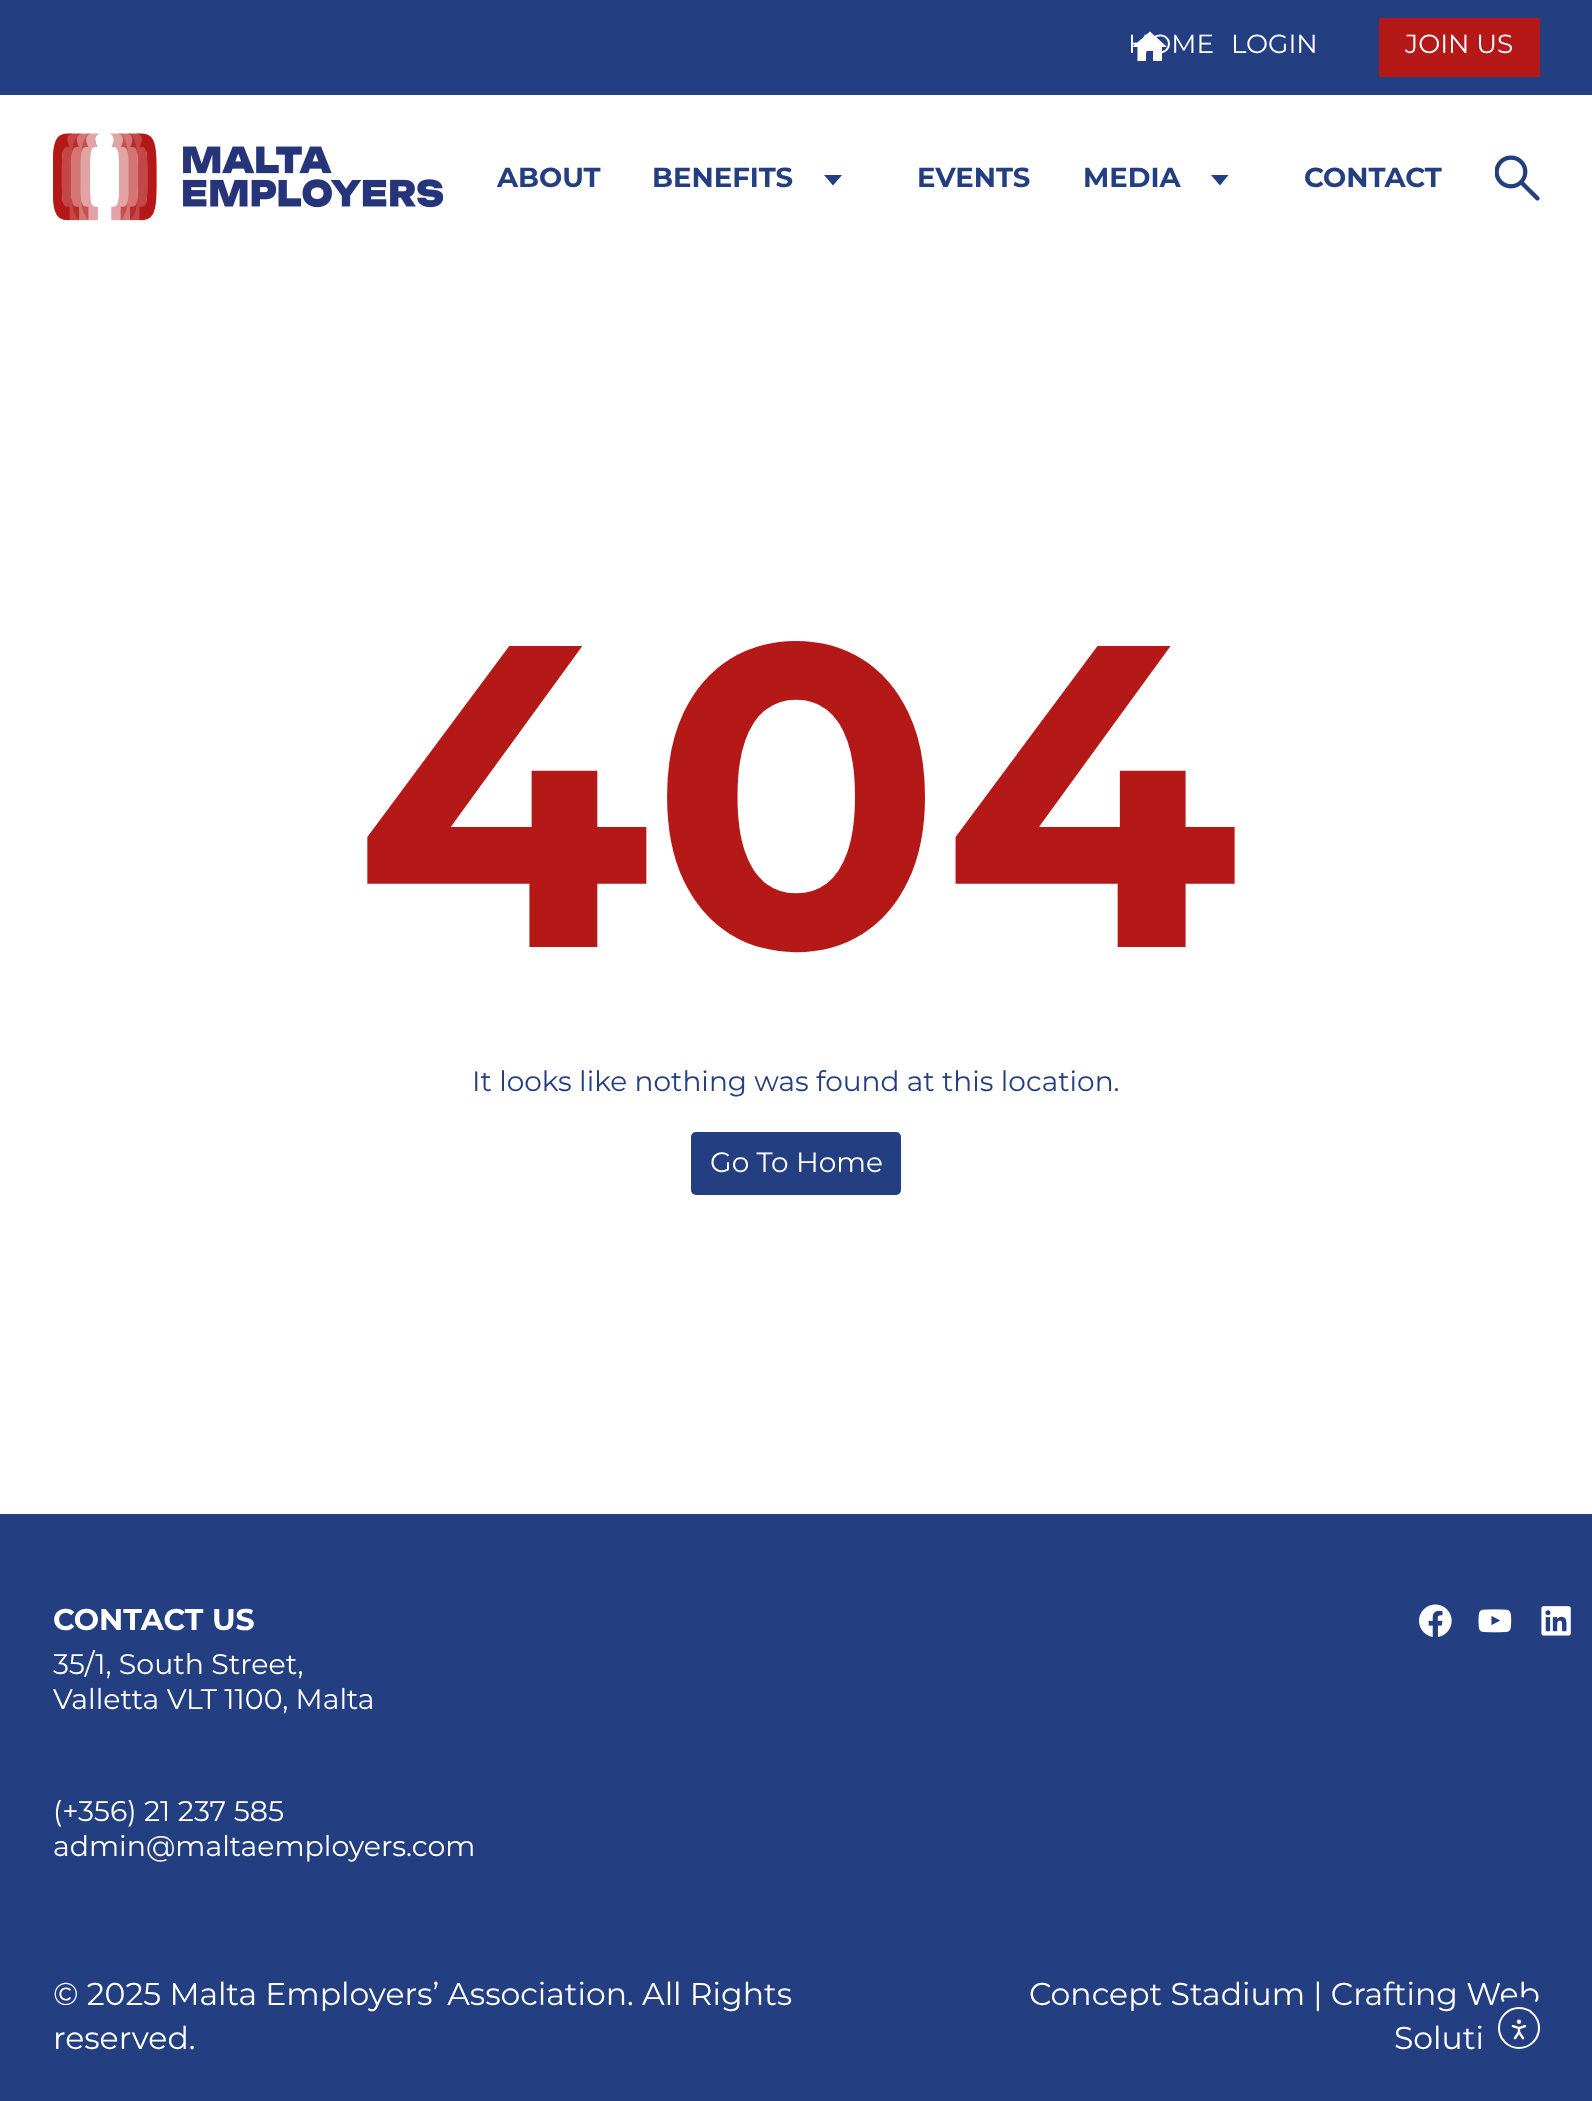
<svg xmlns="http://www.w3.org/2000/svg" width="1592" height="2101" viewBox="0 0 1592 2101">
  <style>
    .t1 { font: 26.25px Montserrat; fill: #fff; }
    .t2 { font: bold 27.5px Montserrat; fill: #243e82; }
    .t3 { font: bold 430px Montserrat; fill: #b41918; }
    .t4 { font: 28px Montserrat; fill: #243e82; }
    .t5 { font: 28px Montserrat; fill: #fff; }
    .t6 { font: bold 30px Montserrat; fill: #fff; }
    .t7 { font: 28.4px Montserrat; fill: #fff; }
    .t8 { font: 31.5px Montserrat; fill: #fff; }
  </style>
  <rect width="100%" height="100%" fill="#fff"/>
  <rect x="0" y="0" width="1592" height="95" fill="#243e82"/>
  <path d="M1146 61V51H1153V61H1162V47H1167L1150 31.5L1132 47H1137.5V61Z" fill="#fff"/>
  <text x="1128" y="53" class="t1">HOME</text>
  <text x="1231" y="53" class="t1">LOGIN</text>
  <rect x="1379" y="18" width="161" height="59" fill="#b41918"/>
  <text x="1405" y="53" class="t1">JOIN US</text>
  <image x="53" y="133" width="390" height="88" href="images/1.png"/>
  <text x="497" y="187" class="t2">ABOUT</text>
  <text x="652" y="187" class="t2">BENEFITS</text>
  <path d="M824 175L833 185.5L842 175Z" fill="#243e82"/>
  <text x="917" y="187" class="t2">EVENTS</text>
  <text x="1083" y="187" class="t2">MEDIA</text>
  <path d="M1211 175L1220 185.5L1228.5 175Z" fill="#243e82"/>
  <text x="1304" y="187" class="t2">CONTACT</text>
  <image x="1495" y="155" width="45" height="46" href="images/2.png"/>
  <text x="354" y="947" class="t3">404</text>
  <text x="472" y="1091" class="t4">It looks like nothing was found at this location.</text>
  <rect x="691" y="1132" width="210" height="63" rx="5" fill="#243e82"/>
  <text x="710" y="1172" class="t5">Go To Home</text>
  <rect x="0" y="1514" width="1592" height="587" fill="#243e82"/>
  <text x="53" y="1630" class="t6">CONTACT US</text>
  <text x="53" y="1674" class="t7">35/1, South Street,</text>
  <text x="53" y="1709" class="t7">Valletta VLT 1100, Malta</text>
  <text x="53" y="1821" class="t7">(+356) 21 237 585</text>
  <text x="53" y="1856" class="t7">admin@maltaemployers.com</text>
  <image x="1419" y="1604" width="33" height="33" href="images/3.png"/>
  <image x="1478" y="1609" width="34" height="24" href="images/4.png"/>
  <image x="1541" y="1606" width="30" height="30" href="images/5.png"/>
  <text x="53" y="2005" class="t8">© 2025 Malta Employers’ Association. All Rights</text>
  <text x="53" y="2049" class="t8">reserved.</text>
  <text x="1029" y="2005" class="t8">Concept Stadium | Crafting Web</text>
  <text x="1394" y="2049" class="t8">Soluti</text>
  <circle cx="1519.5" cy="2028.5" r="31.5" fill="#243e82"/>
  <circle cx="1519" cy="2028" r="20" fill="none" stroke="#fff" stroke-width="2"/>
  <image x="1511" y="2019" width="16" height="21" href="images/6.png"/>
</svg>
